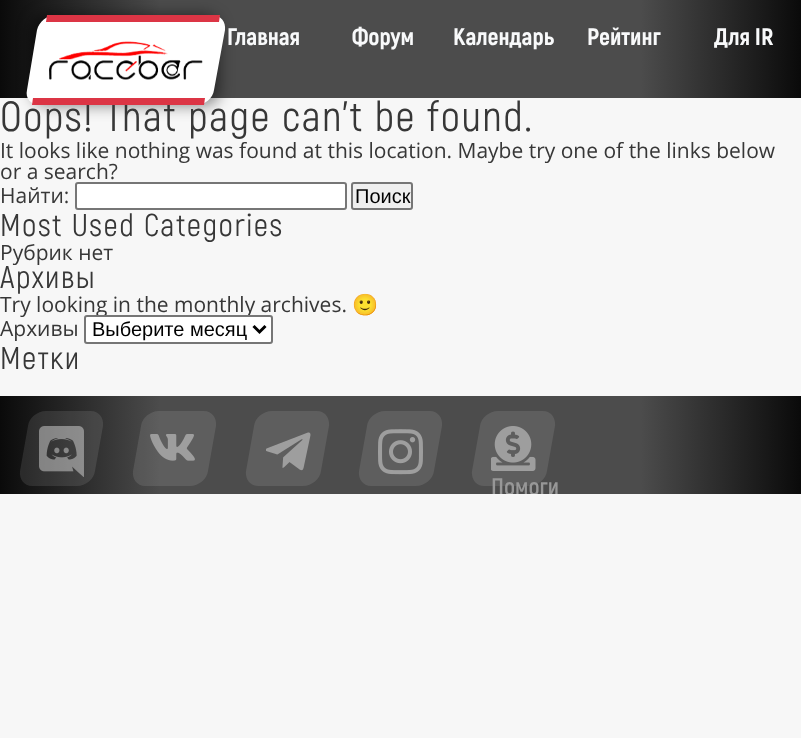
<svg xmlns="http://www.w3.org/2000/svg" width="801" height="738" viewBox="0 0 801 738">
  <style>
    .t1 { font: 42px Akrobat; letter-spacing: 1.5px; fill: #373737; }
    .t2 { font: 800 24px Akrobat; fill: #f8f9fa; }
    .t3 { font: 21px Open Sans; fill: #373737; }
    .t4 { font: 20px Liberation Sans; fill: #000; }
    .t5 { font: 31.5px Akrobat; letter-spacing: 1.5px; fill: #373737; }
    .t6 { font: 21px Noto Color Emoji; fill: #373737; }
    .t7 { font: bold 24px Akrobat; fill: #979797; }
  </style>
  <defs>
    <linearGradient id="g1" gradientUnits="userSpaceOnUse" x1="0" y1="49" x2="801" y2="49"><stop offset="0" stop-color="#0a0a0a"/><stop offset="0.2" stop-color="#4c4c4c"/><stop offset="0.8" stop-color="#4c4c4c"/><stop offset="1" stop-color="#0a0a0a"/></linearGradient>
    <linearGradient id="g2" gradientUnits="userSpaceOnUse" x1="0" y1="445" x2="801" y2="445"><stop offset="0" stop-color="#0a0a0a"/><stop offset="0.2" stop-color="#4c4c4c"/><stop offset="0.8" stop-color="#4c4c4c"/><stop offset="1" stop-color="#0a0a0a"/></linearGradient>
    <clipPath id="clip1"><rect x="0" y="396" width="801" height="98"/></clipPath>
  </defs>
  <rect width="100%" height="100%" fill="#f7f7f7"/>
  <rect x="0" y="0" width="801" height="98" fill="url(#g1)"/>
  <rect x="32" y="15" width="187" height="90" rx="15" fill="#00000080" filter="blur(7.5px)"/>
  <text x="0" y="131" class="t1">Oops! That page can’t be found.</text>
  <path d="M55 15H212C221 15 226 22 225 30L214 90C213 98 205 105 197 105H39C31 105 25 98 27 90L37 30C39 22 47 15 55 15Z" fill="#fff"/>
  <path d="M47 15H220L219 22H46Z" fill="#dc3545"/>
  <path d="M33 98H205L204 105H32Z" fill="#dc3545"/>
  <image x="49" y="41" width="154" height="39" href="images/1.png"/>
  <text x="227" y="45" class="t2">Главная</text>
  <text x="352" y="45" class="t2">Форум</text>
  <text x="453" y="45" class="t2">Календарь</text>
  <text x="587" y="45" class="t2">Рейтинг</text>
  <text x="714" y="45" class="t2">Для IR</text>
  <text x="0" y="158" class="t3">It looks like nothing was found at this location. Maybe try one of the links below</text>
  <text x="0" y="179" class="t3">or a search?</text>
  <text x="0" y="203" class="t3">Найти:</text>
  <rect x="76" y="183" width="270" height="26" rx="2" fill="#fff" stroke="#767676" stroke-width="2"/>
  <rect x="352" y="183" width="60" height="26" rx="2" fill="#efefef" stroke="#767676" stroke-width="2"/>
  <text x="355" y="203" class="t4">Поиск</text>
  <text x="0" y="236" class="t5">Most Used Categories</text>
  <text x="0" y="260" class="t3">Рубрик нет</text>
  <text x="0" y="288" class="t5">Архивы</text>
  <text x="0" y="312" class="t3">Try looking in the monthly archives.</text>
  <text x="352" y="312" class="t6">🙂</text>
  <text x="0" y="336" class="t3">Архивы</text>
  <rect x="85" y="316" width="187" height="27" rx="2" fill="#fff" stroke="#767676" stroke-width="2"/>
  <path d="M253.5 326L259.5 332L265.5 326" fill="none" stroke="#000" stroke-width="3"/>
  <text x="92" y="336" class="t4">Выберите месяц</text>
  <text x="0" y="369" class="t5">Метки</text>
  <rect x="0" y="396" width="801" height="98" fill="url(#g2)"/>
  <path d="M46 411H91C99 411 104 418 103 426L95 471C94 479 86 486 77 486H32C24 486 19 479 20 471L28 426C29 418 37 411 46 411Z" fill="#ffffff1a"/>
  <image x="39" y="426" width="45" height="51" href="images/2.png"/>
  <path d="M159 411H204C212 411 217 418 216 426L208 471C207 479 199 486 190 486H145C137 486 132 479 133 471L141 426C142 418 150 411 159 411Z" fill="#ffffff1a"/>
  <image x="150" y="434" width="45" height="27" href="images/3.png"/>
  <path d="M272 411H317C325 411 330 418 329 426L321 471C320 479 312 486 303 486H258C250 486 245 479 246 471L254 426C255 418 263 411 272 411Z" fill="#5e5e5e"/>
  <image x="266" y="432" width="45" height="39" href="images/4.png"/>
  <path d="M385 411H430C438 411 443 418 442 426L434 471C433 479 425 486 416 486H371C363 486 358 479 359 471L367 426C368 418 376 411 385 411Z" fill="#5e5e5e"/>
  <image x="378" y="429" width="45" height="46" href="images/5.png"/>
  <path d="M498 411H543C551 411 556 418 555 426L547 471C546 479 538 486 529 486H484C476 486 471 479 472 471L480 426C481 418 489 411 498 411Z" fill="#5e5e5e"/>
  <image x="491" y="426" width="45" height="45" href="images/6.png"/>
  <g clip-path="url(#clip1)">
    <text x="491" y="495" class="t7">Помоги</text>
  </g>
</svg>
